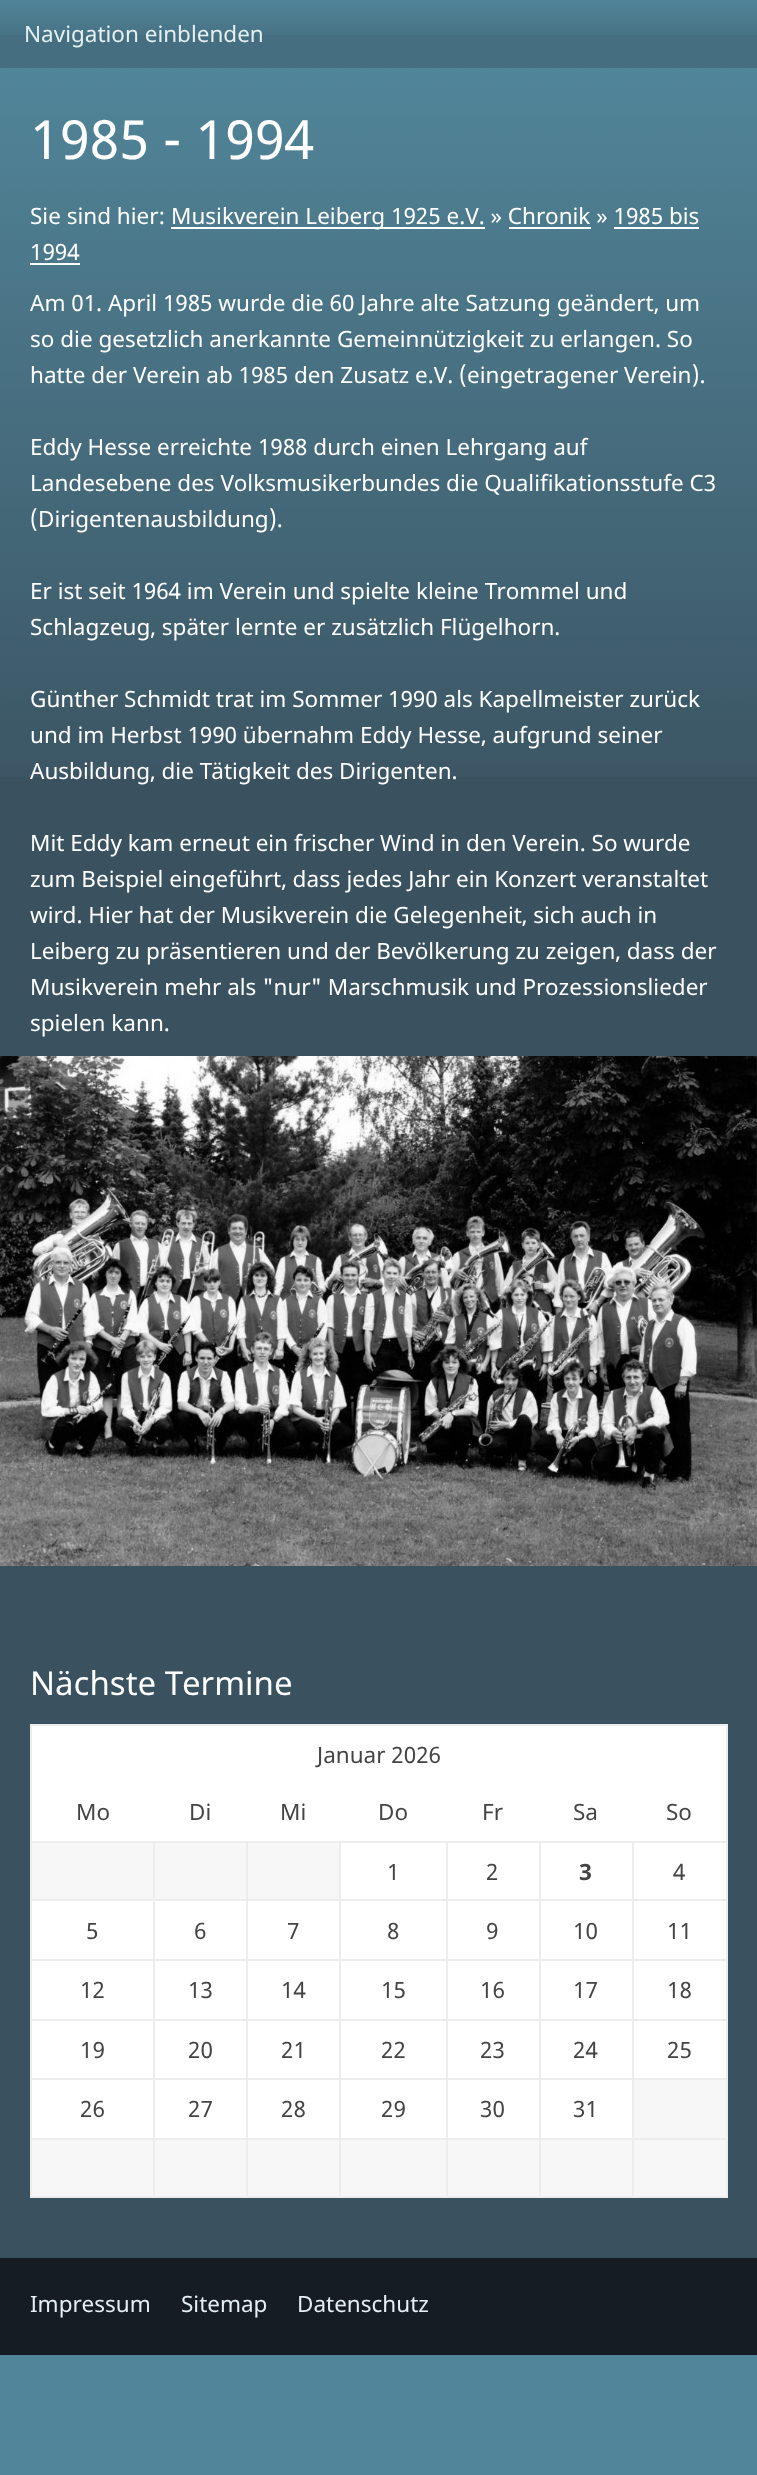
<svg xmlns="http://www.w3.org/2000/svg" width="757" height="2475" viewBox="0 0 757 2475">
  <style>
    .t1 { font: 22.5px Noto Sans; fill: #e5f0f2; }
    .t2 { font: 54px Noto Sans; fill: #fff; }
    .t3 { font: 22.5px Noto Sans; fill: #fff; }
    .t4 { font: 33px Noto Sans; fill: #fff; }
    .t5 { font: 22.5px Noto Sans; fill: #444; }
    .t6 { font: bold 22.5px Noto Sans; fill: #444; }
  </style>
  <rect width="100%" height="100%" fill="#518599"/>
  <rect x="0" y="35" width="757" height="33" fill="#456f80"/>
  <image x="0" y="0" width="757" height="35" href="images/1.png"/>
  <text x="24" y="42" class="t1">Navigation einblenden</text>
  <rect x="0" y="777" width="757" height="1481" fill="#3a5260"/>
  <image x="0" y="68" width="757" height="709" href="images/2.png"/>
  <text x="30" y="159" class="t2">1985 - 1994</text>
  <text x="30" y="224" class="t3">Sie sind hier:</text>
  <rect x="171" y="227" width="314" height="2" fill="#fff"/>
  <text x="171" y="224" class="t3">Musikverein Leiberg 1925 e.V. » Chronik » 1985 bis</text>
  <rect x="509" y="227" width="82" height="2" fill="#fff"/>
  <text x="30" y="260" class="t3">1994</text>
  <rect x="614" y="227" width="85" height="2" fill="#fff"/>
  <rect x="30" y="263" width="50" height="2" fill="#fff"/>
  <text x="30" y="311" class="t3">Am 01. April 1985 wurde die 60 Jahre alte Satzung geändert, um</text>
  <text x="30" y="347" class="t3">so die gesetzlich anerkannte Gemeinnützigkeit zu erlangen. So</text>
  <text x="30" y="383" class="t3">hatte der Verein ab 1985 den Zusatz e.V. (eingetragener Verein).</text>
  <text x="30" y="455" class="t3">Eddy Hesse erreichte 1988 durch einen Lehrgang auf</text>
  <text x="30" y="491" class="t3">Landesebene des Volksmusikerbundes die Qualifikationsstufe C3</text>
  <text x="30" y="527" class="t3">(Dirigentenausbildung).</text>
  <text x="30" y="599" class="t3">Er ist seit 1964 im Verein und spielte kleine Trommel und</text>
  <text x="30" y="635" class="t3">Schlagzeug, später lernte er zusätzlich Flügelhorn.</text>
  <text x="30" y="707" class="t3">Günther Schmidt trat im Sommer 1990 als Kapellmeister zurück</text>
  <text x="30" y="743" class="t3">und im Herbst 1990 übernahm Eddy Hesse, aufgrund seiner</text>
  <text x="30" y="779" class="t3">Ausbildung, die Tätigkeit des Dirigenten.</text>
  <text x="30" y="851" class="t3">Mit Eddy kam erneut ein frischer Wind in den Verein. So wurde</text>
  <text x="30" y="887" class="t3">zum Beispiel eingeführt, dass jedes Jahr ein Konzert veranstaltet</text>
  <text x="30" y="923" class="t3">wird. Hier hat der Musikverein die Gelegenheit, sich auch in</text>
  <text x="30" y="959" class="t3">Leiberg zu präsentieren und der Bevölkerung zu zeigen, dass der</text>
  <text x="30" y="995" class="t3">Musikverein mehr als "nur" Marschmusik und Prozessionslieder</text>
  <text x="30" y="1031" class="t3">spielen kann.</text>
  <image x="0" y="1056" width="757" height="510" href="images/3.png"/>
  <text x="30" y="1695" class="t4">Nächste Termine</text>
  <rect x="30" y="1724" width="698" height="2" fill="#ededed"/>
  <rect x="726" y="1724" width="2" height="474" fill="#ededed"/>
  <rect x="30" y="2196" width="698" height="2" fill="#ededed"/>
  <rect x="30" y="1724" width="2" height="474" fill="#ededed"/>
  <rect x="32" y="1726" width="694" height="56" fill="#fff"/>
  <text x="317" y="1763" class="t5">Januar 2026</text>
  <rect x="32" y="1782" width="694" height="59" fill="#fff"/>
  <text x="76" y="1820" class="t5">Mo</text>
  <text x="189" y="1820" class="t5">Di</text>
  <text x="280" y="1820" class="t5">Mi</text>
  <text x="378" y="1820" class="t5">Do</text>
  <text x="482" y="1820" class="t5">Fr</text>
  <text x="573" y="1820" class="t5">Sa</text>
  <text x="666" y="1820" class="t5">So</text>
  <rect x="32" y="1843" width="121" height="56" fill="#f7f7f7"/>
  <rect x="632" y="1841" width="96" height="2" fill="#ededed"/>
  <rect x="632" y="1899" width="96" height="2" fill="#ededed"/>
  <rect x="632" y="1959" width="96" height="2" fill="#ededed"/>
  <rect x="632" y="2019" width="96" height="2" fill="#ededed"/>
  <rect x="632" y="2078" width="96" height="2" fill="#ededed"/>
  <rect x="632" y="2138" width="96" height="2" fill="#ededed"/>
  <rect x="632" y="2138" width="2" height="60" fill="#ededed"/>
  <rect x="539" y="2138" width="94" height="2" fill="#ededed"/>
  <rect x="632" y="2078" width="2" height="61" fill="#ededed"/>
  <rect x="539" y="2078" width="94" height="2" fill="#ededed"/>
  <rect x="632" y="2019" width="2" height="60" fill="#ededed"/>
  <rect x="539" y="2019" width="94" height="2" fill="#ededed"/>
  <rect x="632" y="1959" width="2" height="62" fill="#ededed"/>
  <rect x="539" y="1959" width="94" height="2" fill="#ededed"/>
  <rect x="632" y="1899" width="2" height="62" fill="#ededed"/>
  <rect x="539" y="1899" width="94" height="2" fill="#ededed"/>
  <rect x="632" y="1841" width="2" height="60" fill="#ededed"/>
  <rect x="539" y="1841" width="94" height="2" fill="#ededed"/>
  <rect x="539" y="2138" width="2" height="60" fill="#ededed"/>
  <rect x="446" y="2138" width="94" height="2" fill="#ededed"/>
  <rect x="539" y="2078" width="2" height="61" fill="#ededed"/>
  <rect x="446" y="2078" width="94" height="2" fill="#ededed"/>
  <rect x="539" y="2019" width="2" height="60" fill="#ededed"/>
  <rect x="446" y="2019" width="94" height="2" fill="#ededed"/>
  <rect x="539" y="1959" width="2" height="62" fill="#ededed"/>
  <rect x="446" y="1959" width="94" height="2" fill="#ededed"/>
  <rect x="539" y="1899" width="2" height="62" fill="#ededed"/>
  <rect x="446" y="1899" width="94" height="2" fill="#ededed"/>
  <rect x="539" y="1841" width="2" height="60" fill="#ededed"/>
  <rect x="446" y="1841" width="94" height="2" fill="#ededed"/>
  <rect x="446" y="2138" width="2" height="60" fill="#ededed"/>
  <rect x="339" y="2138" width="108" height="2" fill="#ededed"/>
  <rect x="446" y="2078" width="2" height="61" fill="#ededed"/>
  <rect x="339" y="2078" width="108" height="2" fill="#ededed"/>
  <rect x="446" y="2019" width="2" height="60" fill="#ededed"/>
  <rect x="339" y="2019" width="108" height="2" fill="#ededed"/>
  <rect x="446" y="1959" width="2" height="62" fill="#ededed"/>
  <rect x="339" y="1959" width="108" height="2" fill="#ededed"/>
  <rect x="446" y="1899" width="2" height="62" fill="#ededed"/>
  <rect x="339" y="1899" width="108" height="2" fill="#ededed"/>
  <rect x="446" y="1841" width="2" height="60" fill="#ededed"/>
  <rect x="339" y="1841" width="108" height="2" fill="#ededed"/>
  <rect x="339" y="2138" width="2" height="60" fill="#ededed"/>
  <rect x="246" y="2138" width="95" height="2" fill="#ededed"/>
  <rect x="339" y="2078" width="2" height="61" fill="#ededed"/>
  <rect x="246" y="2078" width="95" height="2" fill="#ededed"/>
  <rect x="339" y="2019" width="2" height="60" fill="#ededed"/>
  <rect x="246" y="2019" width="95" height="2" fill="#ededed"/>
  <rect x="339" y="1959" width="2" height="62" fill="#ededed"/>
  <rect x="246" y="1959" width="95" height="2" fill="#ededed"/>
  <rect x="339" y="1899" width="2" height="62" fill="#ededed"/>
  <rect x="246" y="1899" width="95" height="2" fill="#ededed"/>
  <rect x="339" y="1841" width="2" height="60" fill="#ededed"/>
  <rect x="246" y="1841" width="95" height="2" fill="#ededed"/>
  <rect x="246" y="2138" width="2" height="60" fill="#ededed"/>
  <rect x="153" y="2138" width="95" height="2" fill="#ededed"/>
  <rect x="246" y="2078" width="2" height="61" fill="#ededed"/>
  <rect x="153" y="2078" width="95" height="2" fill="#ededed"/>
  <rect x="246" y="2019" width="2" height="60" fill="#ededed"/>
  <rect x="153" y="2019" width="95" height="2" fill="#ededed"/>
  <rect x="246" y="1959" width="2" height="62" fill="#ededed"/>
  <rect x="153" y="1959" width="95" height="2" fill="#ededed"/>
  <rect x="246" y="1899" width="2" height="62" fill="#ededed"/>
  <rect x="153" y="1899" width="95" height="2" fill="#ededed"/>
  <rect x="246" y="1841" width="2" height="60" fill="#ededed"/>
  <rect x="153" y="1841" width="95" height="2" fill="#ededed"/>
  <rect x="153" y="2138" width="2" height="60" fill="#ededed"/>
  <rect x="30" y="2138" width="125" height="2" fill="#ededed"/>
  <rect x="153" y="2078" width="2" height="61" fill="#ededed"/>
  <rect x="30" y="2078" width="125" height="2" fill="#ededed"/>
  <rect x="153" y="2019" width="2" height="60" fill="#ededed"/>
  <rect x="30" y="2019" width="125" height="2" fill="#ededed"/>
  <rect x="153" y="1959" width="2" height="62" fill="#ededed"/>
  <rect x="30" y="1959" width="125" height="2" fill="#ededed"/>
  <rect x="153" y="1899" width="2" height="62" fill="#ededed"/>
  <rect x="30" y="1899" width="125" height="2" fill="#ededed"/>
  <rect x="153" y="1841" width="2" height="60" fill="#ededed"/>
  <rect x="30" y="1841" width="125" height="2" fill="#ededed"/>
  <rect x="155" y="1843" width="91" height="56" fill="#f7f7f7"/>
  <rect x="248" y="1843" width="91" height="56" fill="#f7f7f7"/>
  <rect x="341" y="1843" width="105" height="56" fill="#fff"/>
  <text x="387" y="1880" class="t5">1</text>
  <rect x="448" y="1843" width="91" height="56" fill="#fff"/>
  <text x="486" y="1880" class="t5">2</text>
  <rect x="541" y="1843" width="91" height="56" fill="#fff"/>
  <text x="579" y="1880" class="t6">3</text>
  <rect x="634" y="1843" width="92" height="56" fill="#fff"/>
  <text x="673" y="1880" class="t5">4</text>
  <rect x="32" y="1901" width="121" height="58" fill="#fff"/>
  <text x="86" y="1939" class="t5">5</text>
  <rect x="155" y="1901" width="91" height="58" fill="#fff"/>
  <text x="194" y="1939" class="t5">6</text>
  <rect x="248" y="1901" width="91" height="58" fill="#fff"/>
  <text x="287" y="1939" class="t5">7</text>
  <rect x="341" y="1901" width="105" height="58" fill="#fff"/>
  <text x="387" y="1939" class="t5">8</text>
  <rect x="448" y="1901" width="91" height="58" fill="#fff"/>
  <text x="486" y="1939" class="t5">9</text>
  <rect x="541" y="1901" width="91" height="58" fill="#fff"/>
  <text x="573" y="1939" class="t5">10</text>
  <rect x="634" y="1901" width="92" height="58" fill="#fff"/>
  <text x="667" y="1939" class="t5">11</text>
  <rect x="32" y="1961" width="121" height="58" fill="#fff"/>
  <text x="80" y="1998" class="t5">12</text>
  <rect x="155" y="1961" width="91" height="58" fill="#fff"/>
  <text x="188" y="1998" class="t5">13</text>
  <rect x="248" y="1961" width="91" height="58" fill="#fff"/>
  <text x="281" y="1998" class="t5">14</text>
  <rect x="341" y="1961" width="105" height="58" fill="#fff"/>
  <text x="381" y="1998" class="t5">15</text>
  <rect x="448" y="1961" width="91" height="58" fill="#fff"/>
  <text x="480" y="1998" class="t5">16</text>
  <rect x="541" y="1961" width="91" height="58" fill="#fff"/>
  <text x="573" y="1998" class="t5">17</text>
  <rect x="634" y="1961" width="92" height="58" fill="#fff"/>
  <text x="667" y="1998" class="t5">18</text>
  <rect x="32" y="2021" width="121" height="57" fill="#fff"/>
  <text x="80" y="2058" class="t5">19</text>
  <rect x="155" y="2021" width="91" height="57" fill="#fff"/>
  <text x="188" y="2058" class="t5">20</text>
  <rect x="248" y="2021" width="91" height="57" fill="#fff"/>
  <text x="281" y="2058" class="t5">21</text>
  <rect x="341" y="2021" width="105" height="57" fill="#fff"/>
  <text x="381" y="2058" class="t5">22</text>
  <rect x="448" y="2021" width="91" height="57" fill="#fff"/>
  <text x="480" y="2058" class="t5">23</text>
  <rect x="541" y="2021" width="91" height="57" fill="#fff"/>
  <text x="573" y="2058" class="t5">24</text>
  <rect x="634" y="2021" width="92" height="57" fill="#fff"/>
  <text x="667" y="2058" class="t5">25</text>
  <rect x="32" y="2080" width="121" height="58" fill="#fff"/>
  <text x="80" y="2117" class="t5">26</text>
  <rect x="155" y="2080" width="91" height="58" fill="#fff"/>
  <text x="188" y="2117" class="t5">27</text>
  <rect x="248" y="2080" width="91" height="58" fill="#fff"/>
  <text x="281" y="2117" class="t5">28</text>
  <rect x="341" y="2080" width="105" height="58" fill="#fff"/>
  <text x="381" y="2117" class="t5">29</text>
  <rect x="448" y="2080" width="91" height="58" fill="#fff"/>
  <text x="480" y="2117" class="t5">30</text>
  <rect x="541" y="2080" width="91" height="58" fill="#fff"/>
  <text x="573" y="2117" class="t5">31</text>
  <rect x="634" y="2080" width="92" height="58" fill="#f7f7f7"/>
  <rect x="32" y="2140" width="121" height="56" fill="#f7f7f7"/>
  <rect x="155" y="2140" width="91" height="56" fill="#f7f7f7"/>
  <rect x="248" y="2140" width="91" height="56" fill="#f7f7f7"/>
  <rect x="341" y="2140" width="105" height="56" fill="#f7f7f7"/>
  <rect x="448" y="2140" width="91" height="56" fill="#f7f7f7"/>
  <rect x="541" y="2140" width="91" height="56" fill="#f7f7f7"/>
  <rect x="634" y="2140" width="92" height="56" fill="#f7f7f7"/>
  <rect x="0" y="2258" width="757" height="97" fill="#151c22"/>
  <text x="30" y="2312" class="t1">Impressum</text>
  <text x="181" y="2312" class="t1">Sitemap</text>
  <text x="297" y="2312" class="t1">Datenschutz</text>
</svg>
